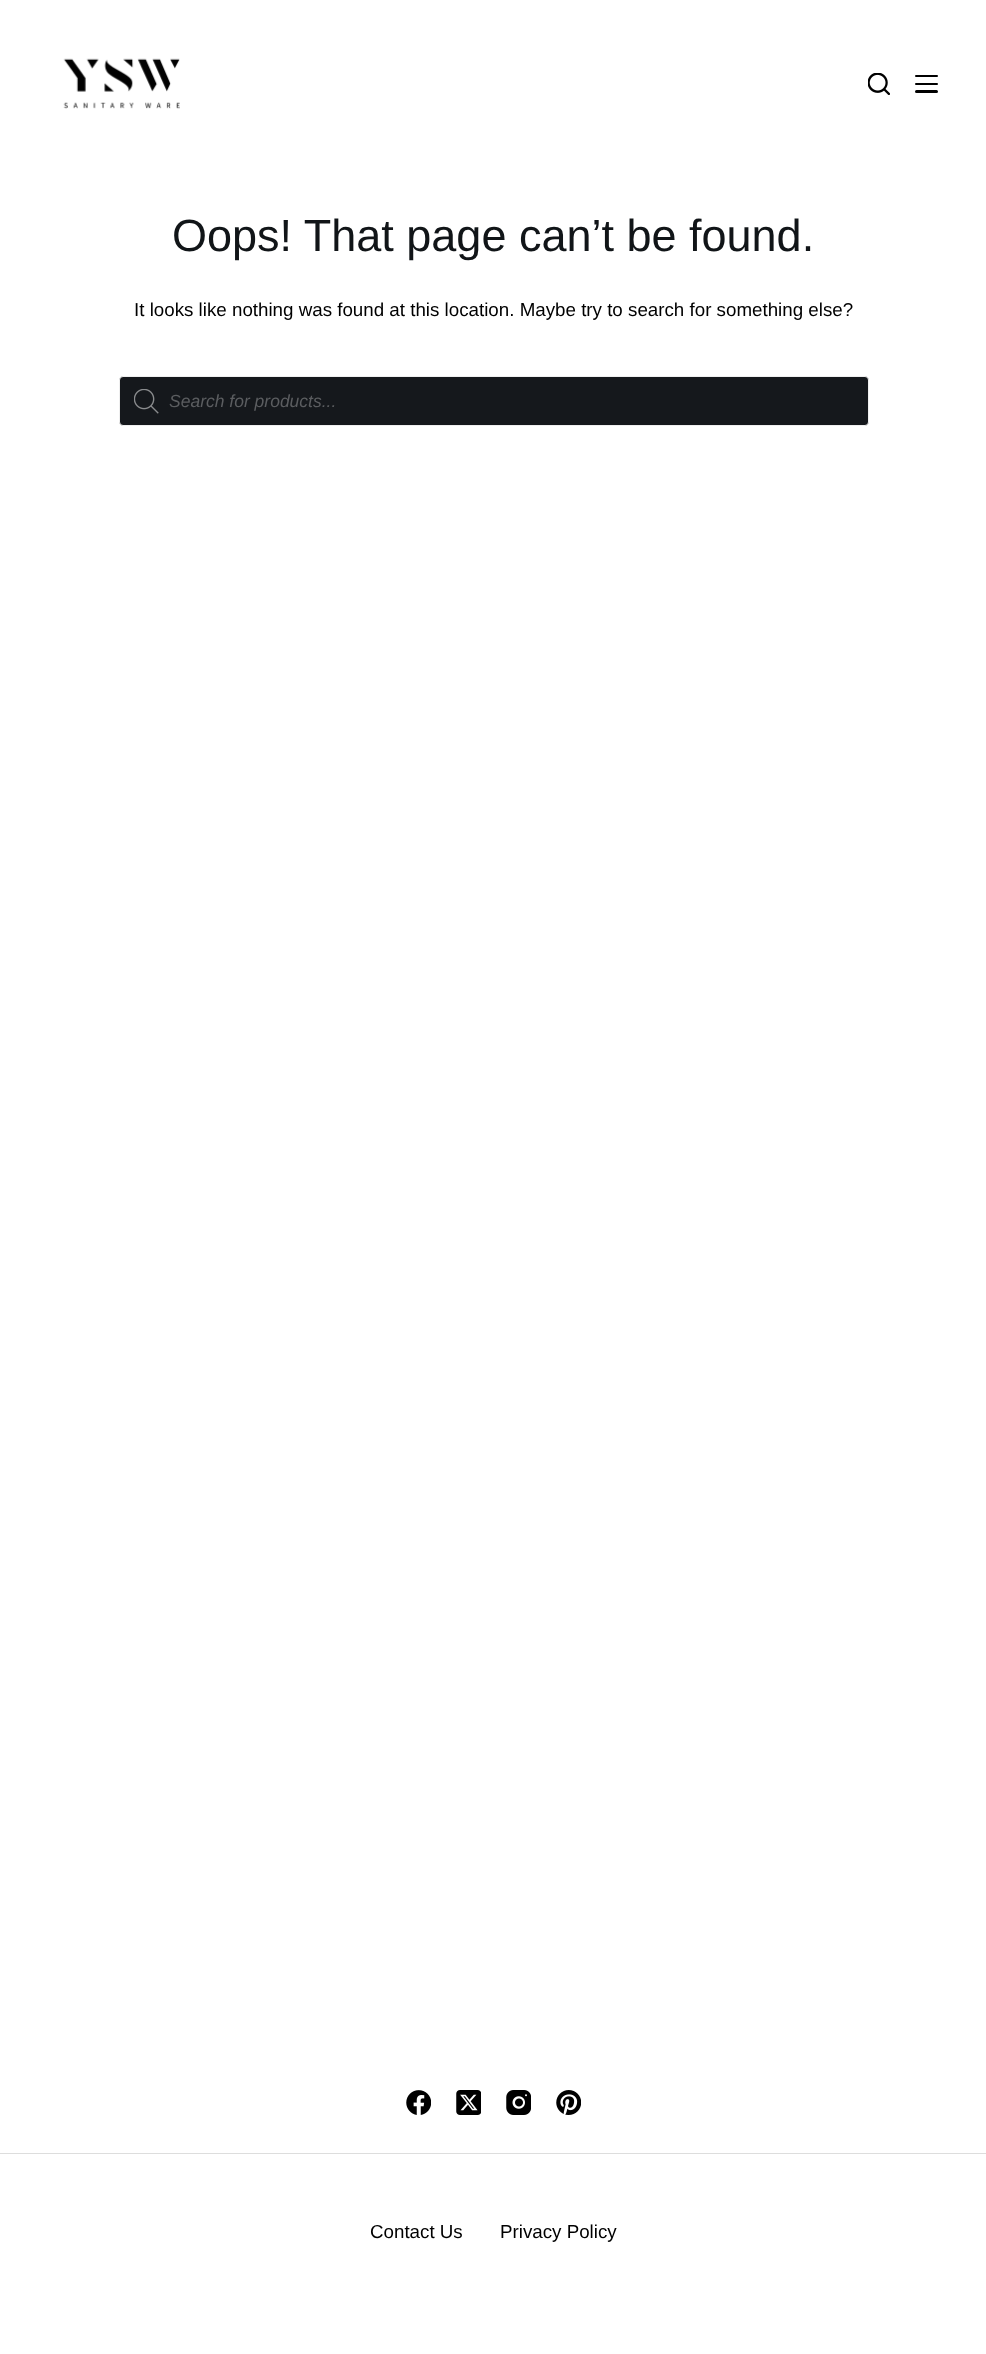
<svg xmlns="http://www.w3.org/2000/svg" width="986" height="2354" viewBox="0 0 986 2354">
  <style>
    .t1 { font: 45px Liberation Sans; fill: #111518; }
    .t2 { font: 18.75px Liberation Sans; fill: #000; }
    .t3 { font: italic 17.5px Liberation Sans; fill: #5b5d60; }
  </style>
  <rect width="100%" height="100%" fill="#fff"/>
  <image x="63" y="58" width="117" height="51" href="images/1.png"/>
  <image x="868" y="73" width="22" height="22" href="images/2.png"/>
  <rect x="915" y="75" width="23" height="2" rx="1" fill="#000"/>
  <rect x="915" y="83" width="23" height="2" rx="1" fill="#000"/>
  <rect x="915" y="90" width="23" height="3" rx="1.5" fill="#000"/>
  <text x="172" y="251" class="t1">Oops! That page can’t be found.</text>
  <text x="134" y="316" class="t2">It looks like nothing was found at this location. Maybe try to search for something else?</text>
  <rect x="119.5" y="376.5" width="749" height="49" rx="3.5" fill="#15181c" stroke="#efefef"/>
  <image x="134" y="389" width="25" height="25" href="images/3.png"/>
  <text x="169" y="407" class="t3">Search for products...</text>
  <image x="406" y="2090" width="25" height="25" href="images/4.png"/>
  <image x="456" y="2090" width="25" height="25" href="images/5.png"/>
  <image x="506" y="2090" width="25" height="25" href="images/6.png"/>
  <image x="556" y="2090" width="25" height="25" href="images/7.png"/>
  <rect x="0" y="2153" width="986" height="1" fill="#ddd"/>
  <text x="370" y="2238" class="t2">Contact Us</text>
  <text x="500" y="2238" class="t2">Privacy Policy</text>
</svg>
